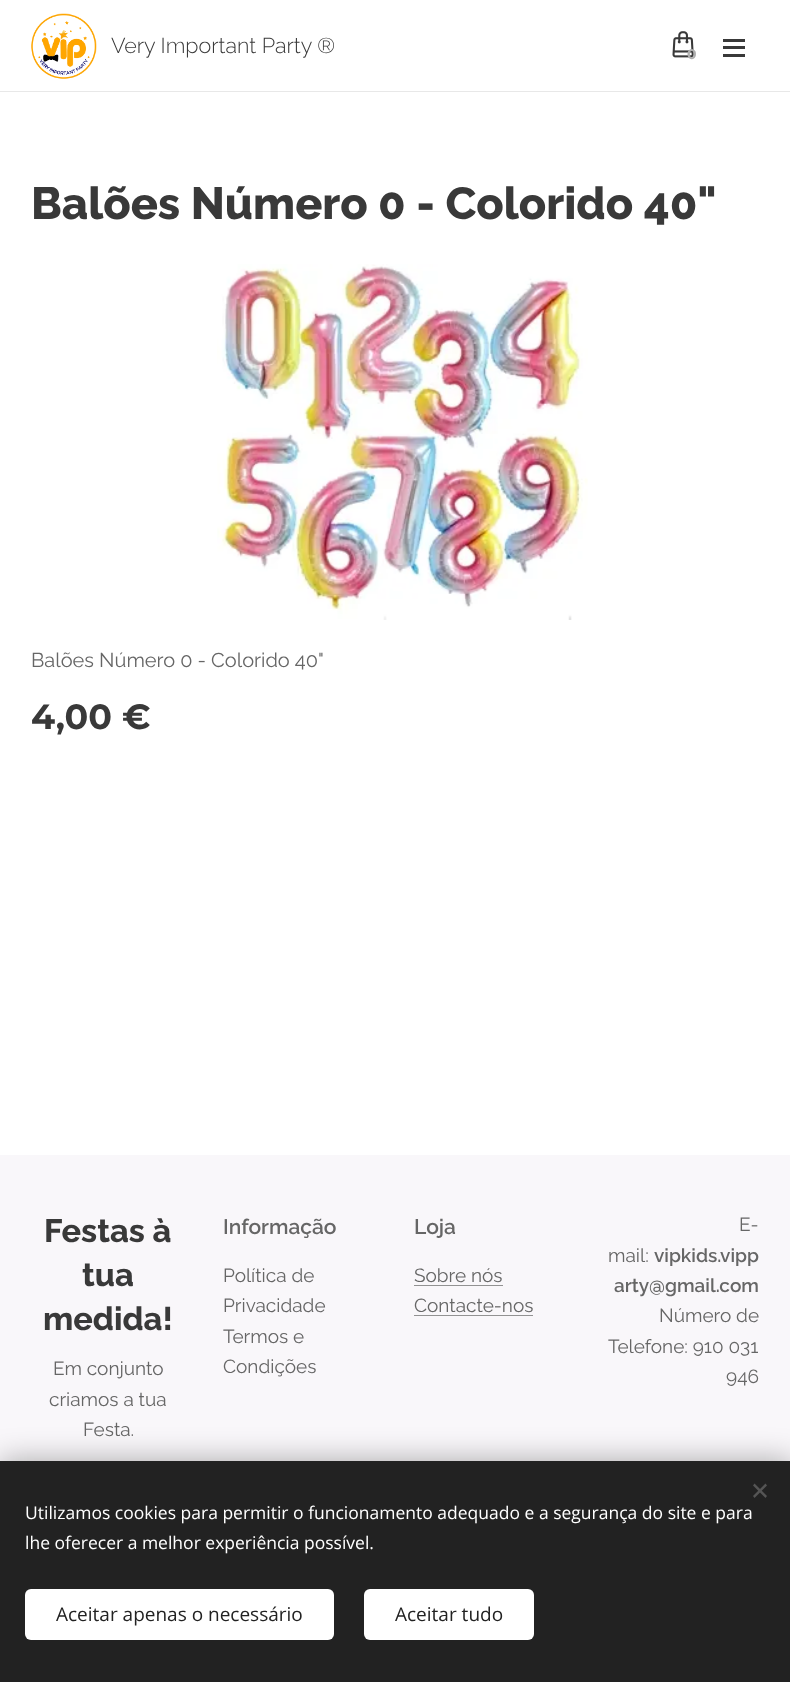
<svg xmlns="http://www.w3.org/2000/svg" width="790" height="1682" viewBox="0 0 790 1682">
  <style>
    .t1 { font: 300 21.5px Raleway; fill: #393939; }
    .t2 { font: bold 14px Montserrat; fill: #afafaf; }
    .t3 { font: 800 45px Raleway; fill: #393939; }
    .t4 { font: 20px Raleway; fill: #666; }
    .t5 { font: bold 35px Montserrat; fill: #393939; }
    .t6 { font: bold 32.5px Raleway; fill: #393939; }
    .t7 { font: 19px Raleway; fill: #666; }
    .t8 { font: 600 21px Raleway; fill: #666; }
    .t9 { font: 600 19px Raleway; fill: #666; }
    .t10 { font: 17.5px Open Sans; fill: #fff; }
    .t11 { font: 19px Open Sans; fill: #222; }
  </style>
  <rect width="100%" height="100%" fill="#fff"/>
  <image x="31" y="13" width="66" height="66" href="images/1.png"/>
  <text x="111" y="53" class="t1">Very Important Party ®</text>
  <image x="672" y="31" width="22" height="27" href="images/2.png"/>
  <text x="687" y="59" class="t2">0</text>
  <rect x="723" y="46" width="22" height="3" fill="#393939"/>
  <rect x="723" y="39" width="22" height="3" fill="#393939"/>
  <rect x="723" y="54" width="22" height="3" fill="#393939"/>
  <rect x="0" y="91" width="790" height="1" fill="#e8e8e8"/>
  <text x="31" y="219" class="t3">Balões Número 0 - Colorido 40"</text>
  <image x="217" y="264" width="371" height="356" href="images/3.png"/>
  <text x="31" y="667" class="t4">Balões Número 0 - Colorido 40"</text>
  <text x="31" y="729" class="t5">4,00 €</text>
  <rect x="0" y="1155" width="790" height="306" fill="#f9f7fa"/>
  <text x="44" y="1242" class="t6">Festas à</text>
  <text x="82" y="1286" class="t6">tua</text>
  <text x="43" y="1330" class="t6">medida!</text>
  <text x="53" y="1375" class="t7">Em conjunto</text>
  <text x="49" y="1406" class="t7">criamos a tua</text>
  <text x="83" y="1436" class="t7">Festa.</text>
  <text x="223" y="1234" class="t8">Informação</text>
  <text x="223" y="1282" class="t7">Política de</text>
  <text x="223" y="1312" class="t7">Privacidade</text>
  <text x="223" y="1343" class="t7">Termos e</text>
  <text x="223" y="1373" class="t7">Condições</text>
  <text x="414" y="1234" class="t8">Loja</text>
  <text x="414" y="1282" class="t7">Sobre nós</text>
  <rect x="414" y="1285" width="89" height="1" fill="#929292"/>
  <text x="414" y="1312" class="t7">Contacte-nos</text>
  <rect x="414" y="1315" width="119" height="1" fill="#929292"/>
  <text x="739" y="1231" class="t7">E-</text>
  <text x="608" y="1262" class="t7">mail:</text>
  <text x="654" y="1262" class="t9">vipkids.vipp</text>
  <text x="614" y="1292" class="t9">arty@gmail.com</text>
  <text x="659" y="1322" class="t7">Número de</text>
  <text x="608" y="1353" class="t7">Telefone: 910 031</text>
  <text x="726" y="1383" class="t7">946</text>
  <rect x="0" y="1461" width="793" height="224" fill="#00000054" filter="blur(15.5px)"/>
  <rect x="0" y="1461" width="790" height="221" fill="#222"/>
  <path d="M753 1496L765.5 1483.5L767 1485.5L754.5 1498Z" fill="#555"/>
  <path d="M754.5 1483.5L767 1496L765.5 1498L753 1485.5Z" fill="#555"/>
  <text x="25" y="1519" class="t10">Utilizamos cookies para permitir o funcionamento adequado e a segurança do site e para</text>
  <text x="25" y="1549" class="t10">lhe oferecer a melhor experiência possível.</text>
  <rect x="25" y="1589" width="309" height="51" rx="6" fill="#fff"/>
  <text x="56" y="1621" class="t11">Aceitar apenas o necessário</text>
  <rect x="364" y="1589" width="170" height="51" rx="6" fill="#fff"/>
  <text x="395" y="1621" class="t11">Aceitar tudo</text>
</svg>
